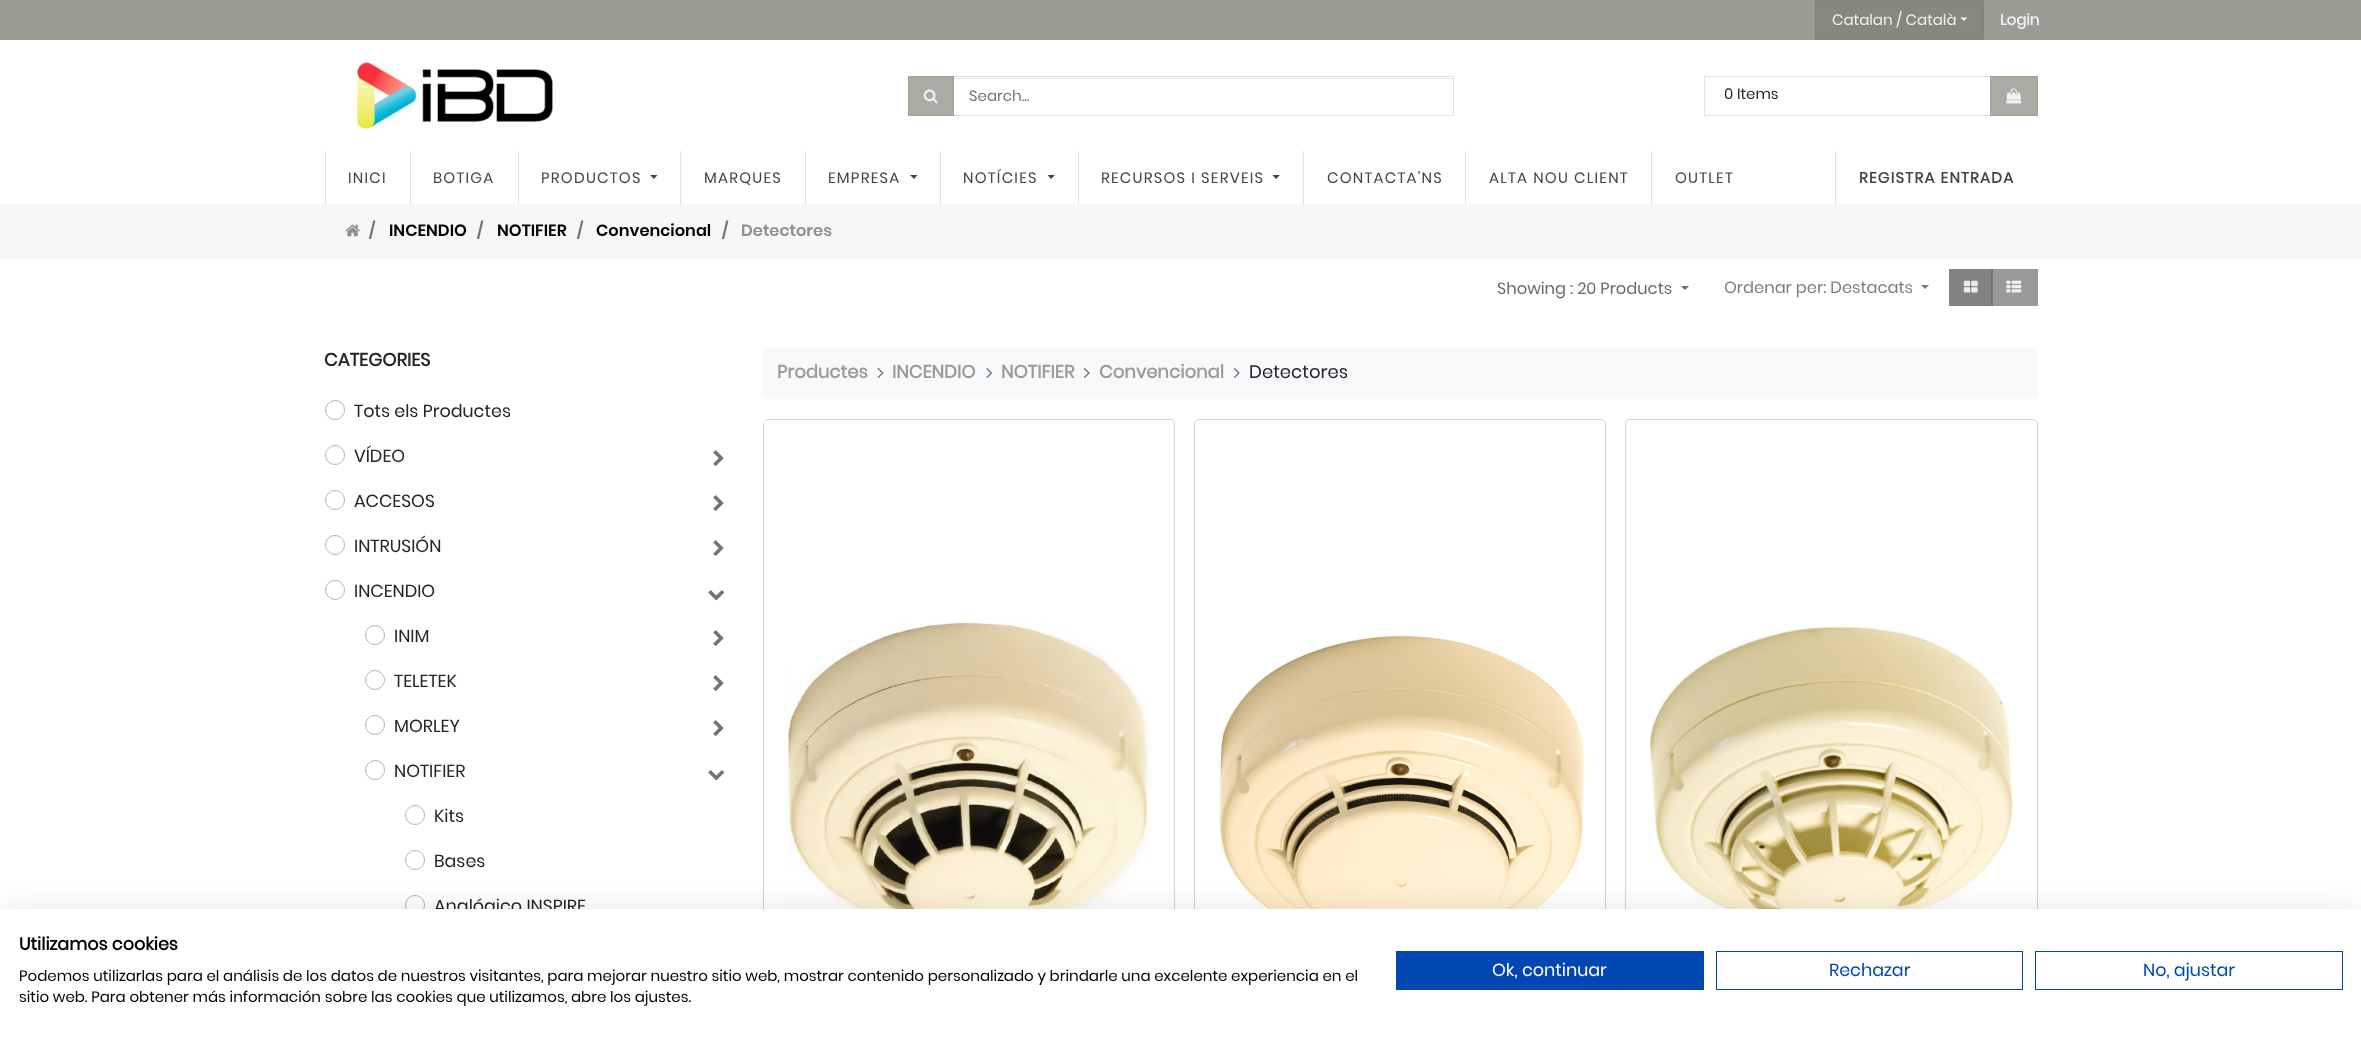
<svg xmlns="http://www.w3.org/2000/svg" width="2361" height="1041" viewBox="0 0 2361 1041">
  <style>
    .t1 { font: 15px Poppins; fill: #f0f0ef; }
    .t2 { font: bold 15px Poppins; fill: #f0f0ef; }
    .t3 { font: 15px Poppins; fill: #6c757d; }
    .t4 { font: 15px Poppins; fill: #212529; }
    .t5 { font: 15px Poppins; letter-spacing: 1.25px; fill: #444; }
    .t6 { font: bold 15px Poppins; letter-spacing: 1.25px; fill: #444; }
    .t7 { font: 600 16.25px Poppins; fill: #6c757d; }
    .t8 { font: 600 16.25px Poppins; fill: #000; }
    .t9 { font: 600 16.25px Poppins; fill: #909090; }
    .t10 { font: 16.25px Poppins; fill: #6a6a6a; }
    .t11 { font: 16.25px Poppins; fill: #7b7e80; }
    .t12 { font: bold 18px Poppins; fill: #212529; }
    .t13 { font: 17.5px Poppins; fill: #212529; }
    .t14 { font: bold 18px Poppins; fill: #9c9c94; }
    .t15 { font: 18px Poppins; fill: #212529; }
    .t16 { font: bold 17.5px Poppins; fill: #000; }
    .t17 { font: 15px Poppins; fill: #000; }
    .t18 { font: 17.5px Poppins; fill: #fff; }
    .t19 { font: 17.5px Poppins; fill: #0047b2; }
  </style>
  <rect width="100%" height="100%" fill="#fff"/>
  <rect x="1990" y="76" width="48" height="40" fill="#ababa4"/>
  <rect x="1949" y="269" width="42" height="37" fill="#848383"/>
  <rect x="0" y="0" width="2361" height="40" fill="#9c9c94"/>
  <rect x="1815.5" y="0.5" width="168" height="39" rx="0.5" fill="#87877e" stroke="#828278"/>
  <text x="1832" y="25" class="t1">Catalan / Català</text>
  <path d="M1960 17.5H1967.5L1964 21Z" fill="#f0f0ef"/>
  <text x="2000" y="25" class="t2">Login</text>
  <image x="357" y="62" width="196" height="67" href="images/1.png"/>
  <rect x="954" y="78" width="499" height="1" fill="#e6e6e6"/>
  <rect x="953.5" y="76.5" width="500" height="39" fill="none" stroke="#dee2e6"/>
  <rect x="908" y="76" width="46" height="40" fill="#9c9c94d9"/>
  <rect x="908.5" y="76.5" width="45" height="39" fill="none" stroke="#9c9c94d9"/>
  <image x="923" y="89" width="15" height="15" href="images/2.png"/>
  <text x="969" y="101" class="t3">Search...</text>
  <rect x="1704" y="76" width="287" height="1" fill="#dee2e6"/>
  <rect x="1990" y="76" width="1" height="1" fill="#a6a7a0"/>
  <rect x="1704" y="115" width="287" height="1" fill="#dee2e6"/>
  <rect x="1990" y="115" width="1" height="1" fill="#a6a7a0"/>
  <rect x="1704" y="76" width="1" height="40" fill="#dee2e6"/>
  <text x="1724" y="99" class="t4">0 Items</text>
  <rect x="1990.5" y="76.5" width="47" height="39" fill="none" stroke="#9c9c94d9"/>
  <image x="2006" y="88" width="16" height="16" href="images/3.png"/>
  <rect x="325" y="151" width="1" height="53" fill="#dee2e6"/>
  <text x="348" y="183" class="t5">INICI</text>
  <rect x="410" y="151" width="1" height="53" fill="#dee2e6"/>
  <text x="433" y="183" class="t5">BOTIGA</text>
  <rect x="518" y="151" width="1" height="53" fill="#dee2e6"/>
  <text x="541" y="183" class="t5">PRODUCTOS</text>
  <path d="M650 175H657.5L654 179Z" fill="#444"/>
  <rect x="680" y="151" width="1" height="53" fill="#dee2e6"/>
  <text x="704" y="183" class="t5">MARQUES</text>
  <rect x="805" y="151" width="1" height="53" fill="#dee2e6"/>
  <text x="828" y="183" class="t5">EMPRESA</text>
  <path d="M910 175H917.5L914 179Z" fill="#444"/>
  <rect x="940" y="151" width="1" height="53" fill="#dee2e6"/>
  <text x="963" y="183" class="t5">NOTÍCIES</text>
  <path d="M1047.5 175H1055L1051 179Z" fill="#444"/>
  <rect x="1078" y="151" width="1" height="53" fill="#dee2e6"/>
  <text x="1101" y="183" class="t5">RECURSOS I SERVEIS</text>
  <path d="M1272.5 175H1280L1276 179Z" fill="#444"/>
  <rect x="1303" y="151" width="1" height="53" fill="#dee2e6"/>
  <text x="1327" y="183" class="t5">CONTACTA'NS</text>
  <rect x="1465" y="151" width="1" height="53" fill="#dee2e6"/>
  <text x="1489" y="183" class="t5">ALTA NOU CLIENT</text>
  <rect x="1651" y="151" width="1" height="53" fill="#dee2e6"/>
  <text x="1675" y="183" class="t5">OUTLET</text>
  <rect x="1835" y="151" width="1" height="53" fill="#dee2e6"/>
  <text x="1859" y="183" class="t6">REGISTRA ENTRADA</text>
  <rect x="0" y="204" width="2361" height="55" fill="#f7f7f7"/>
  <image x="345" y="224" width="15" height="13" href="images/4.png"/>
  <text x="369" y="236" class="t7">/</text>
  <text x="389" y="236" class="t8">INCENDIO</text>
  <text x="477" y="236" class="t7">/</text>
  <text x="497" y="236" class="t8">NOTIFIER</text>
  <text x="577" y="236" class="t7">/</text>
  <text x="596" y="236" class="t8">Convencional</text>
  <text x="722" y="236" class="t7">/</text>
  <text x="741" y="236" class="t9">Detectores</text>
  <text x="1497" y="294" class="t10">Showing : 20 Products</text>
  <path d="M1681 286H1689L1685 290Z" fill="#6a6a6a"/>
  <text x="1724" y="293" class="t11">Ordenar per: Destacats</text>
  <path d="M1921 285H1929L1925 289Z" fill="#7b7e80"/>
  <image x="1963" y="280" width="15" height="13" href="images/5.png"/>
  <rect x="1993" y="269" width="45" height="37" fill="#999"/>
  <rect x="1991" y="269" width="2" height="37" fill="#747474"/>
  <image x="2006" y="280" width="16" height="13" href="images/6.png"/>
  <text x="324" y="366" class="t12">CATEGORIES</text>
  <circle cx="335" cy="410" r="9.5" fill="none" stroke="#adb5bd"/>
  <text x="354" y="417" class="t13">Tots els Productes</text>
  <circle cx="335" cy="455" r="9.5" fill="none" stroke="#adb5bd"/>
  <text x="354" y="462" class="t13">VÍDEO</text>
  <image x="713" y="450" width="11" height="16" href="images/7.png"/>
  <circle cx="335" cy="500" r="9.5" fill="none" stroke="#adb5bd"/>
  <text x="354" y="507" class="t13">ACCESOS</text>
  <image x="713" y="495" width="11" height="16" href="images/7.png"/>
  <circle cx="335" cy="545" r="9.5" fill="none" stroke="#adb5bd"/>
  <text x="354" y="552" class="t13">INTRUSIÓN</text>
  <image x="713" y="540" width="11" height="16" href="images/7.png"/>
  <circle cx="335" cy="590" r="9.5" fill="none" stroke="#adb5bd"/>
  <text x="354" y="597" class="t13">INCENDIO</text>
  <image x="708" y="590" width="17" height="11" href="images/8.png"/>
  <circle cx="375" cy="635" r="9.5" fill="none" stroke="#adb5bd"/>
  <text x="394" y="642" class="t13">INIM</text>
  <image x="713" y="630" width="11" height="16" href="images/7.png"/>
  <circle cx="375" cy="680" r="9.5" fill="none" stroke="#adb5bd"/>
  <text x="394" y="687" class="t13">TELETEK</text>
  <image x="713" y="675" width="11" height="16" href="images/7.png"/>
  <circle cx="375" cy="725" r="9.5" fill="none" stroke="#adb5bd"/>
  <text x="394" y="732" class="t13">MORLEY</text>
  <image x="713" y="720" width="11" height="16" href="images/7.png"/>
  <circle cx="375" cy="770" r="9.5" fill="none" stroke="#adb5bd"/>
  <text x="394" y="777" class="t13">NOTIFIER</text>
  <image x="708" y="770" width="17" height="11" href="images/8.png"/>
  <circle cx="415" cy="815" r="9.5" fill="none" stroke="#adb5bd"/>
  <text x="434" y="822" class="t13">Kits</text>
  <circle cx="415" cy="860" r="9.5" fill="none" stroke="#adb5bd"/>
  <text x="434" y="867" class="t13">Bases</text>
  <circle cx="415" cy="905" r="9.5" fill="none" stroke="#adb5bd"/>
  <text x="434" y="912" class="t13">Analógico INSPIRE</text>
  <rect x="763" y="348" width="1275" height="51" rx="5" fill="#f8f9fa"/>
  <text x="777" y="378" class="t14">Productes</text>
  <image x="877" y="368" width="7" height="10" href="images/9.png"/>
  <text x="892" y="378" class="t14">INCENDIO</text>
  <image x="986" y="368" width="7" height="10" href="images/10.png"/>
  <text x="1001" y="378" class="t14">NOTIFIER</text>
  <image x="1083" y="368" width="7" height="10" href="images/11.png"/>
  <text x="1099" y="378" class="t14">Convencional</text>
  <image x="1233" y="368" width="7" height="10" href="images/11.png"/>
  <text x="1249" y="378" class="t15">Detectores</text>
  <rect x="763.5" y="419.5" width="411" height="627" rx="4.5" fill="none" stroke="#ced4da"/>
  <path d="M768 420H1170C1172 420 1174 422 1174 424V1041H764V424C764 422 766 420 768 420Z" fill="#ffffffe6"/>
  <image x="785" y="622" width="366" height="287" href="images/12.png"/>
  <rect x="1194.5" y="419.5" width="411" height="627" rx="4.5" fill="none" stroke="#ced4da"/>
  <path d="M1199 420H1601C1603 420 1605 422 1605 424V1041H1195V424C1195 422 1197 420 1199 420Z" fill="#ffffffe6"/>
  <image x="1219" y="635" width="366" height="274" href="images/13.png"/>
  <rect x="1625.5" y="419.5" width="412" height="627" rx="4.5" fill="none" stroke="#ced4da"/>
  <path d="M1630 420H2032C2034 420 2036 422 2036 424V1041H1626V424C1626 422 1628 420 1630 420Z" fill="#ffffffe6"/>
  <image x="1649" y="625" width="366" height="284" href="images/14.png"/>
  <rect x="0" y="909" width="2361" height="132" fill="#0000001a" filter="blur(15px)"/>
  <rect x="0" y="909" width="2361" height="132" fill="#fff"/>
  <text x="19" y="950" class="t16">Utilizamos cookies</text>
  <text x="19" y="981" class="t17">Podemos utilizarlas para el análisis de los datos de nuestros visitantes, para mejorar nuestro sitio web, mostrar contenido personalizado y brindarle una excelente experiencia en el</text>
  <text x="19" y="1002" class="t17">sitio web. Para obtener más información sobre las cookies que utilizamos, abre los ajustes.</text>
  <rect x="1396" y="951" width="308" height="39" fill="#0047b2"/>
  <text x="1492" y="976" class="t18">Ok, continuar</text>
  <rect x="1716.5" y="951.5" width="306" height="38" fill="none" stroke="#0047b2"/>
  <text x="1829" y="976" class="t19">Rechazar</text>
  <rect x="2035.5" y="951.5" width="307" height="38" fill="none" stroke="#0047b2"/>
  <text x="2143" y="976" class="t19">No, ajustar</text>
</svg>
